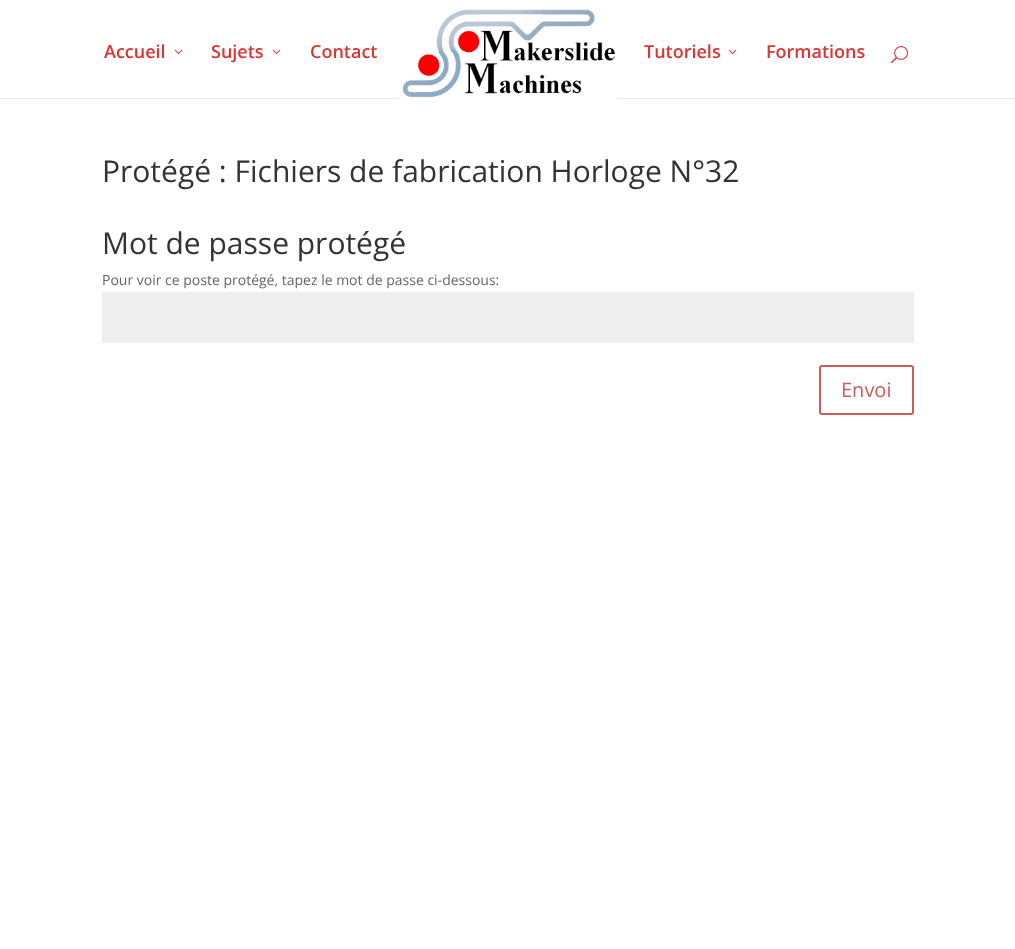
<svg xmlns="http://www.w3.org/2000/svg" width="1015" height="949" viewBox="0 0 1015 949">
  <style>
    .t1 { font: 600 18px Open Sans; fill: #d33; }
    .t2 { font: 30px Open Sans; fill: #333; }
    .t3 { font: 14px Open Sans; fill: #666; }
    .t4 { font: 20px Open Sans; fill: #cd5c5c; }
  </style>
  <rect width="100%" height="100%" fill="#fff"/>
  <rect x="0" y="98" width="1015" height="1" fill="#e6e6e6"/>
  <text x="104" y="58" class="t1">Accueil</text>
  <image x="174" y="49" width="9" height="5" href="images/1.png"/>
  <text x="211" y="58" class="t1">Sujets</text>
  <image x="272" y="49" width="9" height="5" href="images/1.png"/>
  <text x="310" y="58" class="t1">Contact</text>
  <image x="399" y="9" width="219" height="90" href="images/2.png"/>
  <text x="644" y="58" class="t1">Tutoriels</text>
  <image x="728" y="49" width="9" height="5" href="images/1.png"/>
  <text x="766" y="58" class="t1">Formations</text>
  <image x="891" y="46" width="17" height="18" href="images/3.png"/>
  <text x="102" y="182" class="t2">Protégé : Fichiers de fabrication Horloge N°32</text>
  <text x="102" y="254" class="t2">Mot de passe protégé</text>
  <text x="102" y="285" class="t3">Pour voir ce poste protégé, tapez le mot de passe ci-dessous:</text>
  <rect x="102" y="292" width="812" height="51" fill="#eee"/>
  <rect x="820" y="366" width="93" height="48" rx="2" fill="none" stroke="#cd5c5c" stroke-width="2"/>
  <text x="841" y="397" class="t4">Envoi</text>
</svg>
